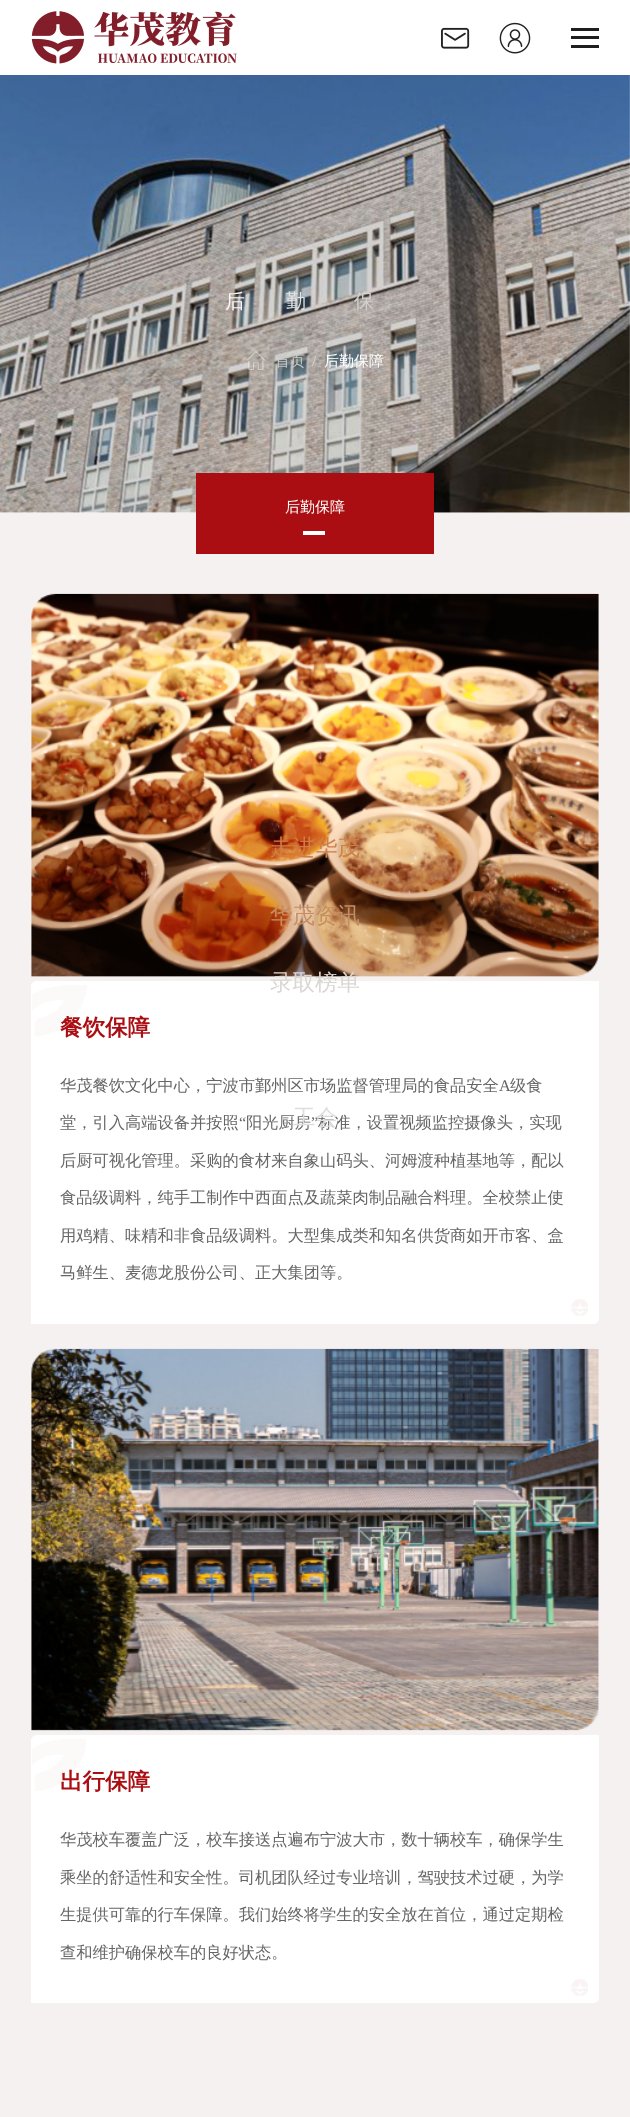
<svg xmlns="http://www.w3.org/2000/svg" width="630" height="2117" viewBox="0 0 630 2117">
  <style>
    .t1 { font: 500 20px WenQuanYi Zen Hei; letter-spacing: 12px; fill: #f8f8f8; }
    .t2 { font: 500 20px WenQuanYi Zen Hei; letter-spacing: 12px; fill: #e2e4e5; }
    .t3 { font: 500 20px WenQuanYi Zen Hei; letter-spacing: 12px; fill: #d3d0ce; }
    .t4 { font: 500 15px WenQuanYi Zen Hei; fill: #c5c8c8; }
    .t5 { font: 15px Liberation Serif; fill: #dad6d2; }
    .t6 { font: 500 15px WenQuanYi Zen Hei; fill: #fff; }
    .t7 { font: bold 22.5px WenQuanYi Zen Hei; fill: #ab0e12; }
    .t8 { font: 500 16.25px WenQuanYi Zen Hei; fill: #666; }
    .t9 { font: 16.25px Liberation Serif; fill: #666; }
    .t10 { font: 500 22.5px WenQuanYi Zen Hei; fill: #cd7f48; }
    .t11 { font: 500 22.5px WenQuanYi Zen Hei; fill: #c48e62; }
    .t12 { font: 500 22.5px WenQuanYi Zen Hei; fill: #dad6d2; }
    .t13 { font: 500 22.5px WenQuanYi Zen Hei; fill: #dedede; }
  </style>
  <rect width="100%" height="100%" fill="#fff"/>
  <image x="0" y="75" width="630" height="438" href="images/1.png"/>
  <text x="225" y="308" class="t1">后</text>
  <text x="286" y="308" class="t2">勤</text>
  <text x="354" y="308" class="t3">保</text>
  <image x="246" y="351" width="19" height="19" href="images/2.png"/>
  <text x="275" y="366" class="t4">首页</text>
  <text x="312" y="366" class="t5">/</text>
  <text x="324" y="366" class="t6">后勤保障</text>
  <rect x="0" y="513" width="630" height="1604" fill="#f6f1f1"/>
  <rect x="196" y="473" width="238" height="81" fill="#ab0e12"/>
  <text x="285" y="512" class="t6">后勤保障</text>
  <rect x="303" y="531" width="22" height="4" fill="#fff"/>
  <image x="31" y="593" width="568" height="384" href="images/3.png"/>
  <path d="M37 981H599V1318C599 1321.5 596.5 1324 593 1324H31V987C31 983.5 33.5 981 37 981Z" fill="#fff"/>
  <text x="60" y="1035" class="t7">餐饮保障</text>
  <image x="32" y="985" width="55" height="51" href="images/4.png"/>
  <text x="60" y="1091" class="t8">华茂餐饮文化中心，宁波市鄞州区市场监督管理局的食品安全</text>
  <text x="499" y="1091" class="t9">A</text>
  <text x="510" y="1091" class="t8">级食</text>
  <text x="60" y="1128" class="t8">堂，引入高端设备并按照</text>
  <text x="239" y="1128" class="t9">“</text>
  <text x="246" y="1128" class="t8">阳光厨房</text>
  <text x="311" y="1128" class="t9">”</text>
  <text x="318" y="1128" class="t8">标准，设置视频监控摄像头，实现</text>
  <text x="60" y="1166" class="t8">后厨可视化管理。采购的食材来自象山码头、河姆渡种植基地等，配以</text>
  <text x="60" y="1203" class="t8">食品级调料，纯手工制作中西面点及蔬菜肉制品融合料理。全校禁止使</text>
  <text x="60" y="1241" class="t8">用鸡精、味精和非食品级调料。大型集成类和知名供货商如开市客、盒</text>
  <text x="60" y="1278" class="t8">马鲜生、麦德龙股份公司、正大集团等。</text>
  <image x="571" y="1299" width="17" height="17" href="images/5.png"/>
  <image x="31" y="1348" width="568" height="383" href="images/6.png"/>
  <path d="M37 1735H599V1997C599 2000.5 596.5 2003 593 2003H31V1741C31 1737.5 33.5 1735 37 1735Z" fill="#fff"/>
  <text x="60" y="1789" class="t7">出行保障</text>
  <image x="32" y="1739" width="54" height="52" href="images/7.png"/>
  <text x="60" y="1845" class="t8">华茂校车覆盖广泛，校车接送点遍布宁波大市，数十辆校车，确保学生</text>
  <text x="60" y="1883" class="t8">乘坐的舒适性和安全性。司机团队经过专业培训，驾驶技术过硬，为学</text>
  <text x="60" y="1920" class="t8">生提供可靠的行车保障。我们始终将学生的安全放在首位，通过定期检</text>
  <text x="60" y="1958" class="t8">查和维护确保校车的良好状态。</text>
  <image x="571" y="1979" width="17" height="17" href="images/5.png"/>
  <image x="31" y="11" width="206" height="53" href="images/8.png"/>
  <image x="441" y="27" width="29" height="22" href="images/9.png"/>
  <image x="499" y="22" width="32" height="32" href="images/10.png"/>
  <rect x="571" y="28" width="28" height="3" fill="#1e1e1e"/>
  <rect x="571" y="36" width="28" height="3" fill="#1e1e1e"/>
  <rect x="571" y="45" width="28" height="3" fill="#1e1e1e"/>
  <text x="270" y="855" class="t10">走进华茂</text>
  <text x="270" y="923" class="t11">华茂资讯</text>
  <text x="270" y="990" class="t12">录取榜单</text>
  <text x="293" y="1125" class="t13">工会</text>
</svg>
